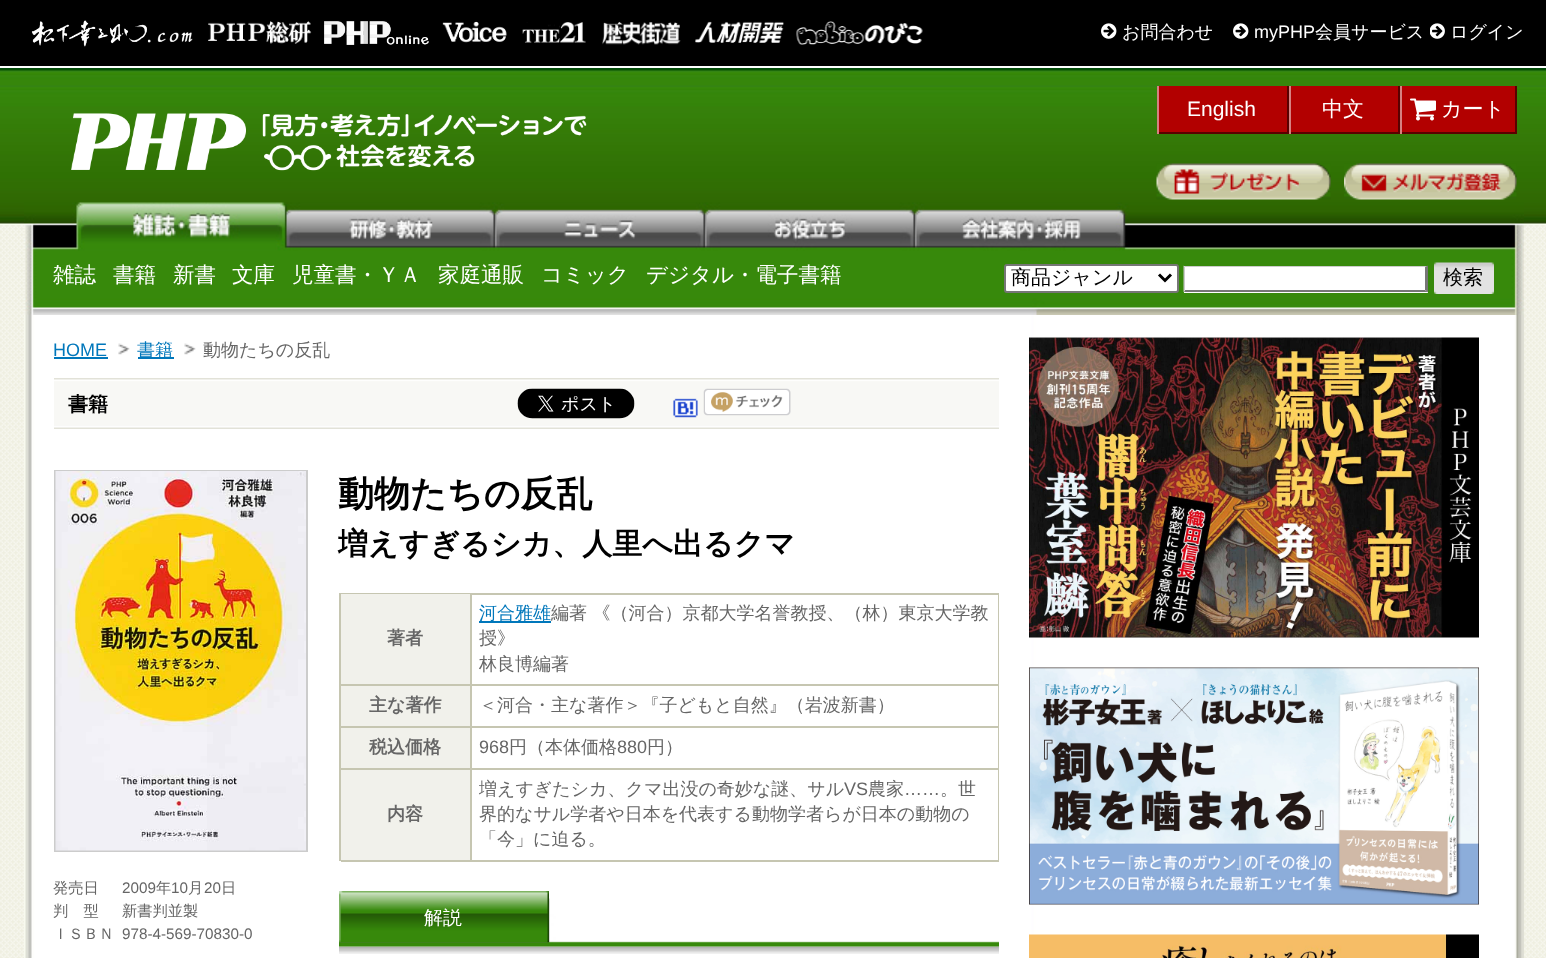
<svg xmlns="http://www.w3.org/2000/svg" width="1546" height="958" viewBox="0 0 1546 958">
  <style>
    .t1 { font: 500 18px WenQuanYi Zen Hei; fill: #fff; }
    .t2 { font: 18px Liberation Sans; fill: #fff; }
    .t3 { font: 21px Liberation Sans; fill: #fff; }
    .t4 { font: 500 21px WenQuanYi Zen Hei; fill: #fff; }
    .t5 { font: 500 21.5px WenQuanYi Zen Hei; fill: #fff; }
    .t6 { font: 500 20px WenQuanYi Zen Hei; fill: #000; }
    .t7 { font: 18px Liberation Sans; fill: #07b; }
    .t8 { font: 500 18px WenQuanYi Zen Hei; fill: #07b; }
    .t9 { font: 500 18px WenQuanYi Zen Hei; fill: #666; }
    .t10 { font: bold 20px WenQuanYi Zen Hei; fill: #000; }
    .t11 { font: 500 15.25px WenQuanYi Zen Hei; fill: #666; }
    .t12 { font: 15.25px Liberation Sans; fill: #666; }
    .t13 { font: bold 36px WenQuanYi Zen Hei; fill: #000; }
    .t14 { font: bold 30px WenQuanYi Zen Hei; fill: #000; }
    .t15 { font: bold 18px WenQuanYi Zen Hei; fill: #666; }
    .t16 { font: 18px Liberation Sans; fill: #666; }
    .t17 { font: 500 19px WenQuanYi Zen Hei; fill: #fff; }
  </style>
  <rect width="100%" height="100%" fill="#fff"/>
  <image x="0" y="225" width="1546" height="733" href="images/1.png"/>
  <image x="0" y="68" width="1546" height="157" href="images/2.png"/>
  <rect x="0" y="0" width="1546" height="66" fill="#000"/>
  <image x="31" y="20" width="162" height="27" href="images/3.png"/>
  <image x="208" y="21" width="104" height="23" href="images/4.png"/>
  <image x="324" y="21" width="105" height="24" href="images/5.png"/>
  <image x="442" y="21" width="65" height="22" href="images/6.png"/>
  <image x="522" y="22" width="64" height="21" href="images/7.png"/>
  <image x="602" y="21" width="79" height="24" href="images/8.png"/>
  <image x="695" y="21" width="89" height="22" href="images/9.png"/>
  <image x="796" y="21" width="127" height="24" href="images/10.png"/>
  <image x="1101" y="23" width="16" height="16" href="images/11.png"/>
  <text x="1122" y="38" class="t1">お問合わせ</text>
  <image x="1233" y="23" width="16" height="16" href="images/11.png"/>
  <text x="1254" y="38" class="t2">myPHP</text>
  <text x="1315" y="38" class="t1">会員サービス</text>
  <image x="1430" y="23" width="15" height="16" href="images/12.png"/>
  <text x="1450" y="38" class="t1">ログイン</text>
  <image x="71" y="113" width="516" height="58" href="images/13.png"/>
  <rect x="1159" y="86" width="128" height="46" fill="#b20000"/>
  <rect x="1287" y="86" width="2" height="48" fill="#590000"/>
  <rect x="1157" y="132" width="132" height="2" fill="#590000"/>
  <rect x="1157" y="86" width="2" height="48" fill="#d68181"/>
  <text x="1187" y="116" class="t3">English</text>
  <rect x="1291" y="86" width="107" height="46" fill="#b20000"/>
  <rect x="1398" y="86" width="2" height="48" fill="#590000"/>
  <rect x="1289" y="132" width="111" height="2" fill="#590000"/>
  <rect x="1289" y="86" width="2" height="48" fill="#d68181"/>
  <text x="1322" y="116" class="t4">中文</text>
  <rect x="1402" y="86" width="113" height="46" fill="#b20000"/>
  <rect x="1515" y="86" width="2" height="48" fill="#590000"/>
  <rect x="1400" y="132" width="117" height="2" fill="#590000"/>
  <rect x="1400" y="86" width="2" height="48" fill="#d68181"/>
  <image x="1410" y="98" width="26" height="23" href="images/14.png"/>
  <text x="1441" y="116" class="t4">カート</text>
  <image x="1156" y="163" width="175" height="37" href="images/15.png"/>
  <image x="1344" y="163" width="173" height="37" href="images/16.png"/>
  <image x="24" y="202" width="1500" height="113" href="images/17.png"/>
  <text x="53" y="282" class="t5">雑誌</text>
  <text x="113" y="282" class="t5">書籍</text>
  <text x="173" y="282" class="t5">新書</text>
  <text x="232" y="282" class="t5">文庫</text>
  <text x="292" y="282" class="t5">児童書・ＹＡ</text>
  <text x="438" y="282" class="t5">家庭通販</text>
  <text x="541" y="282" class="t5">コミック</text>
  <text x="646" y="282" class="t5">デジタル・電子書籍</text>
  <rect x="1005" y="265" width="173" height="27" rx="2" fill="#fff" stroke="#767676" stroke-width="2"/>
  <path d="M1159 274.5L1165 280.5L1171 274.5" fill="none" stroke="#000" stroke-width="3"/>
  <text x="1011" y="284" class="t6">商品ジャンル</text>
  <rect x="1184" y="266" width="244" height="27" fill="#fff"/>
  <path d="M1184 266H1428L1425 267H1185Z" fill="#ccc"/>
  <path d="M1428 265.5V292.5L1425 289.5V267Z" fill="#767676"/>
  <path d="M1428 292H1184L1185 290H1425Z" fill="#767676"/>
  <path d="M1183.5 292.5V265.5L1185 267V289.5Z" fill="#ccc"/>
  <image x="1434" y="262" width="60" height="32" href="images/18.png"/>
  <text x="1443" y="284" class="t6">検索</text>
  <image x="24" y="315" width="1500" height="643" href="images/19.png"/>
  <text x="53" y="356" class="t7">HOME</text>
  <rect x="54" y="357" width="54" height="2" fill="#07b"/>
  <image x="118" y="343" width="12" height="12" href="images/20.png"/>
  <rect x="138" y="357" width="36" height="2" fill="#07b"/>
  <text x="137" y="356" class="t8">書籍</text>
  <image x="184" y="343" width="12" height="12" href="images/20.png"/>
  <text x="203" y="356" class="t9">動物たちの反乱</text>
  <image x="54" y="378" width="945" height="51" href="images/21.png"/>
  <text x="68" y="411" class="t10">書籍</text>
  <image x="517" y="388" width="118" height="31" href="images/22.png"/>
  <image x="673" y="398" width="25" height="20" href="images/23.png"/>
  <image x="703" y="388" width="88" height="28" href="images/24.png"/>
  <rect x="55" y="471" width="252" height="380" fill="none" stroke="#ccc" stroke-width="2"/>
  <image x="55" y="471" width="251" height="380" href="images/25.png"/>
  <text x="53" y="893" class="t11">発売日</text>
  <text x="122" y="893" class="t12">2009</text>
  <text x="156" y="893" class="t11">年</text>
  <text x="171" y="893" class="t12">10</text>
  <text x="188" y="893" class="t11">月</text>
  <text x="204" y="893" class="t12">20</text>
  <text x="221" y="893" class="t11">日</text>
  <text x="53" y="916" class="t11">判　型</text>
  <text x="122" y="916" class="t11">新書判並製</text>
  <text x="53" y="939" class="t11">ＩＳＢＮ</text>
  <text x="122" y="939" class="t12">978-4-569-70830-0</text>
  <text x="338" y="506" class="t13">動物たちの反乱</text>
  <text x="338" y="554" class="t14">増えすぎるシカ、人里へ出るクマ</text>
  <rect x="339" y="593" width="660" height="2" fill="#c6c6b1"/>
  <rect x="339" y="593" width="2" height="268" fill="#c6c6b1"/>
  <rect x="341" y="594" width="129" height="90" fill="#f1f1eb"/>
  <rect x="470" y="594" width="2" height="267" fill="#c6c6b1"/>
  <rect x="341" y="684" width="130" height="2" fill="#c6c6b1"/>
  <text x="387" y="644" class="t15">著者</text>
  <rect x="998" y="594" width="1" height="267" fill="#c6c6b1"/>
  <rect x="471" y="684" width="528" height="2" fill="#c6c6b1"/>
  <rect x="479" y="621" width="72" height="2" fill="#07b"/>
  <text x="479" y="619" class="t8">河合雅雄</text>
  <text x="551" y="619" class="t9">編著 《（河合）京都大学名誉教授、（林）東京大学教</text>
  <text x="479" y="644" class="t9">授》</text>
  <text x="479" y="670" class="t9">林良博編著</text>
  <rect x="341" y="686" width="129" height="40" fill="#f1f1eb"/>
  <rect x="341" y="726" width="658" height="2" fill="#c6c6b1"/>
  <text x="369" y="711" class="t15">主な著作</text>
  <text x="479" y="711" class="t9">＜河合・主な著作＞『子どもと自然』（岩波新書）</text>
  <rect x="341" y="728" width="129" height="40" fill="#f1f1eb"/>
  <rect x="341" y="768" width="658" height="2" fill="#c6c6b1"/>
  <text x="369" y="753" class="t15">税込価格</text>
  <text x="479" y="753" class="t16">968</text>
  <text x="509" y="753" class="t9">円（本体価格</text>
  <text x="617" y="753" class="t16">880</text>
  <text x="647" y="753" class="t9">円）</text>
  <rect x="341" y="770" width="129" height="90" fill="#f1f1eb"/>
  <rect x="341" y="860" width="658" height="2" fill="#c6c6b1"/>
  <text x="387" y="820" class="t15">内容</text>
  <text x="479" y="795" class="t9">増えすぎたシカ、クマ出没の奇妙な謎、サル</text>
  <text x="844" y="795" class="t16">VS</text>
  <text x="868" y="795" class="t9">農家</text>
  <text x="904" y="795" class="t16">……</text>
  <text x="940" y="795" class="t9">。世</text>
  <text x="479" y="820" class="t9">界的なサル学者や日本を代表する動物学者らが日本の動物の</text>
  <text x="479" y="845" class="t9">「今」に迫る。</text>
  <image x="339" y="946" width="660" height="8" href="images/26.png"/>
  <image x="339" y="898" width="660" height="49" href="images/27.png"/>
  <image x="339" y="891" width="210" height="51" href="images/28.png"/>
  <text x="424" y="924" class="t17">解説</text>
  <image x="1029" y="337" width="450" height="301" href="images/29.png"/>
  <image x="1029" y="667" width="450" height="238" href="images/30.png"/>
  <image x="1029" y="934" width="450" height="24" href="images/31.png"/>
</svg>
